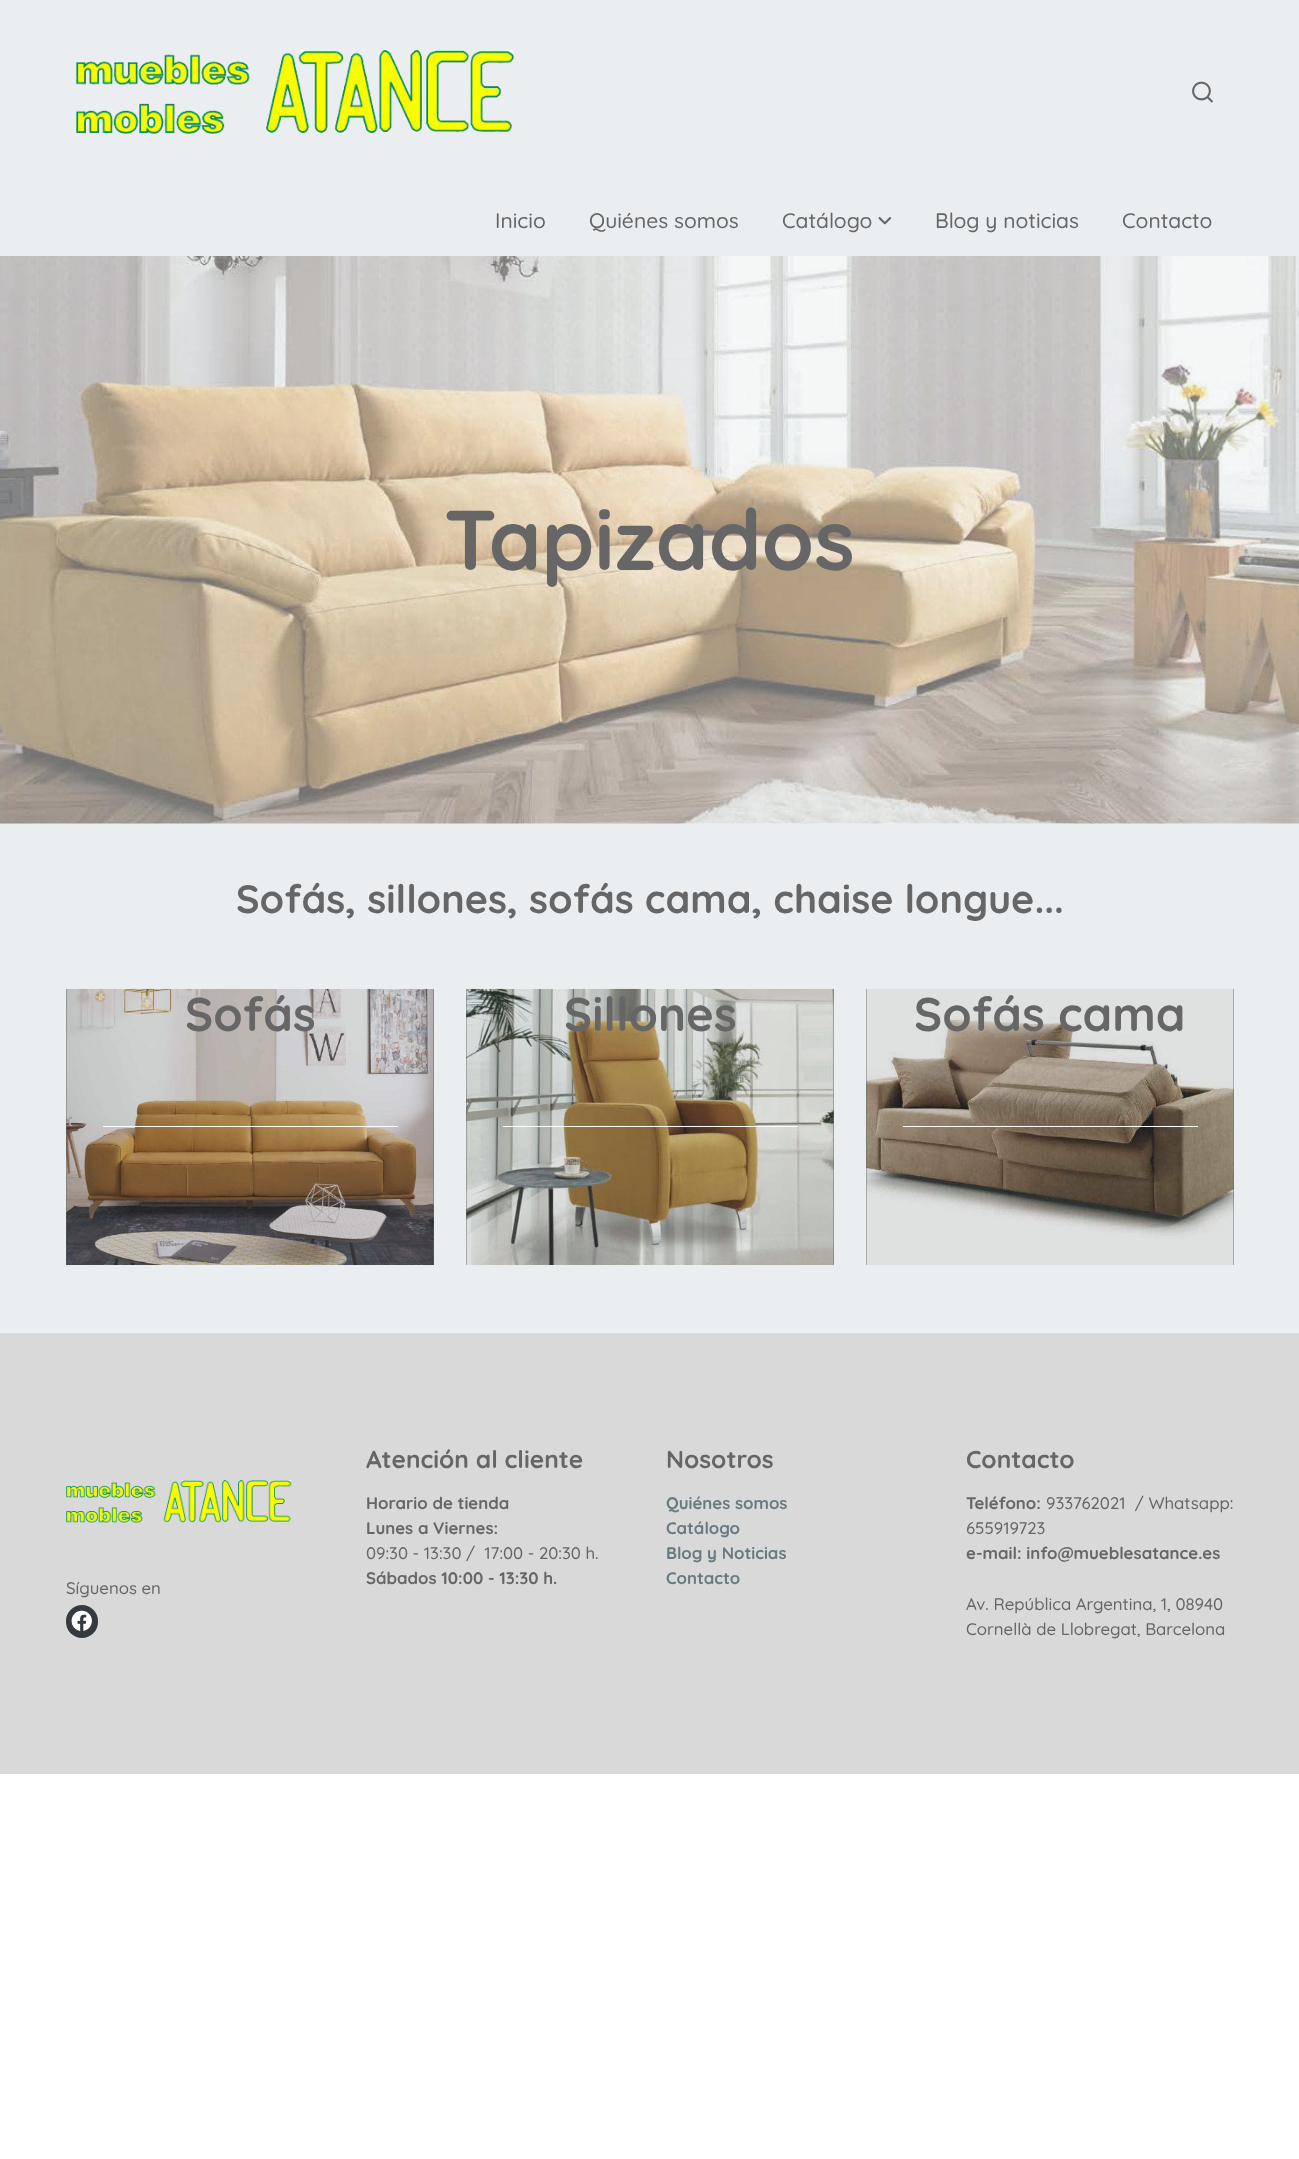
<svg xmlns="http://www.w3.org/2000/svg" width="1299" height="2159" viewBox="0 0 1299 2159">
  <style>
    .t1 { font: 500 21px Quicksand; fill: #666; }
    .t2 { font: bold 84.5px Quicksand; fill: #666; }
    .t3 { font: bold 39.5px Quicksand; fill: #666; }
    .t4 { font: bold 47.25px Quicksand; fill: #666; }
    .t5 { font: 500 16.75px Quicksand; fill: #666; }
    .t6 { font: bold 24.5px Quicksand; fill: #666; }
    .t7 { font: bold 16.75px Quicksand; fill: #666; }
    .t8 { font: bold 16.75px Quicksand; fill: #687a81; }
  </style>
  <rect width="100%" height="100%" fill="#fff"/>
  <rect x="0" y="823" width="1299" height="1" fill="#f6f7f8"/>
  <rect x="0" y="0" width="1299" height="256" fill="#ebeef0"/>
  <image x="76" y="50" width="438" height="84" href="images/1.png"/>
  <image x="1192" y="81" width="21" height="22" href="images/2.png"/>
  <text x="495" y="228" class="t1">Inicio</text>
  <text x="589" y="228" class="t1">Quiénes somos</text>
  <text x="782" y="228" class="t1">Catálogo</text>
  <image x="878" y="217" width="14" height="8" href="images/3.png"/>
  <text x="935" y="228" class="t1">Blog y noticias</text>
  <text x="1122" y="228" class="t1">Contacto</text>
  <image x="0" y="256" width="1299" height="568" href="images/4.png"/>
  <text x="444" y="570" class="t2">Tapizados</text>
  <rect x="0" y="824" width="1299" height="509" fill="#ebeef0"/>
  <text x="236" y="913" class="t3">Sofás, sillones, sofás cama, chaise longue...</text>
  <rect x="66" y="989" width="368" height="276" fill="#606567"/>
  <image x="66" y="988" width="368" height="277" href="images/5.png"/>
  <text x="185" y="1031" class="t4">Sofás</text>
  <rect x="103" y="1126" width="295" height="1" fill="#fff"/>
  <rect x="466" y="989" width="368" height="276" fill="#606567"/>
  <image x="466" y="988" width="368" height="277" href="images/6.png"/>
  <text x="564" y="1031" class="t4">Sillones</text>
  <rect x="503" y="1126" width="295" height="1" fill="#fff"/>
  <rect x="866" y="989" width="368" height="276" fill="#606567"/>
  <image x="866" y="989" width="368" height="276" href="images/7.png"/>
  <text x="914" y="1031" class="t4">Sofás cama</text>
  <rect x="903" y="1126" width="295" height="1" fill="#fff"/>
  <rect x="0" y="1333" width="1299" height="441" fill="#d9d9d9"/>
  <image x="66" y="1480" width="226" height="43" href="images/8.png"/>
  <text x="66" y="1594" class="t5">Síguenos en</text>
  <rect x="66" y="1605" width="32" height="33" rx="16" fill="#343a40"/>
  <image x="71" y="1610" width="21" height="21" href="images/9.png"/>
  <text x="366" y="1468" class="t6">Atención al cliente</text>
  <text x="366" y="1509" class="t7">Horario de tienda</text>
  <text x="366" y="1534" class="t7">Lunes a Viernes:</text>
  <text x="366" y="1559" class="t5" xml:space="preserve">09:30 - 13:30 /  17:00 - 20:30 h.</text>
  <text x="366" y="1584" class="t7">Sábados 10:00 - 13:30 h.</text>
  <text x="666" y="1468" class="t6">Nosotros</text>
  <text x="666" y="1509" class="t8">Quiénes somos</text>
  <text x="666" y="1534" class="t8">Catálogo</text>
  <text x="666" y="1559" class="t8">Blog y Noticias</text>
  <text x="666" y="1584" class="t8">Contacto</text>
  <text x="966" y="1468" class="t6">Contacto</text>
  <text x="966" y="1509" class="t7">Teléfono:</text>
  <text x="1046" y="1509" class="t5" xml:space="preserve">933762021  / Whatsapp:</text>
  <text x="966" y="1534" class="t5">655919723</text>
  <text x="966" y="1559" class="t7">e-mail: info@mueblesatance.es</text>
  <text x="966" y="1610" class="t5">Av. República Argentina, 1, 08940</text>
  <text x="966" y="1635" class="t5">Cornellà de Llobregat, Barcelona</text>
</svg>
